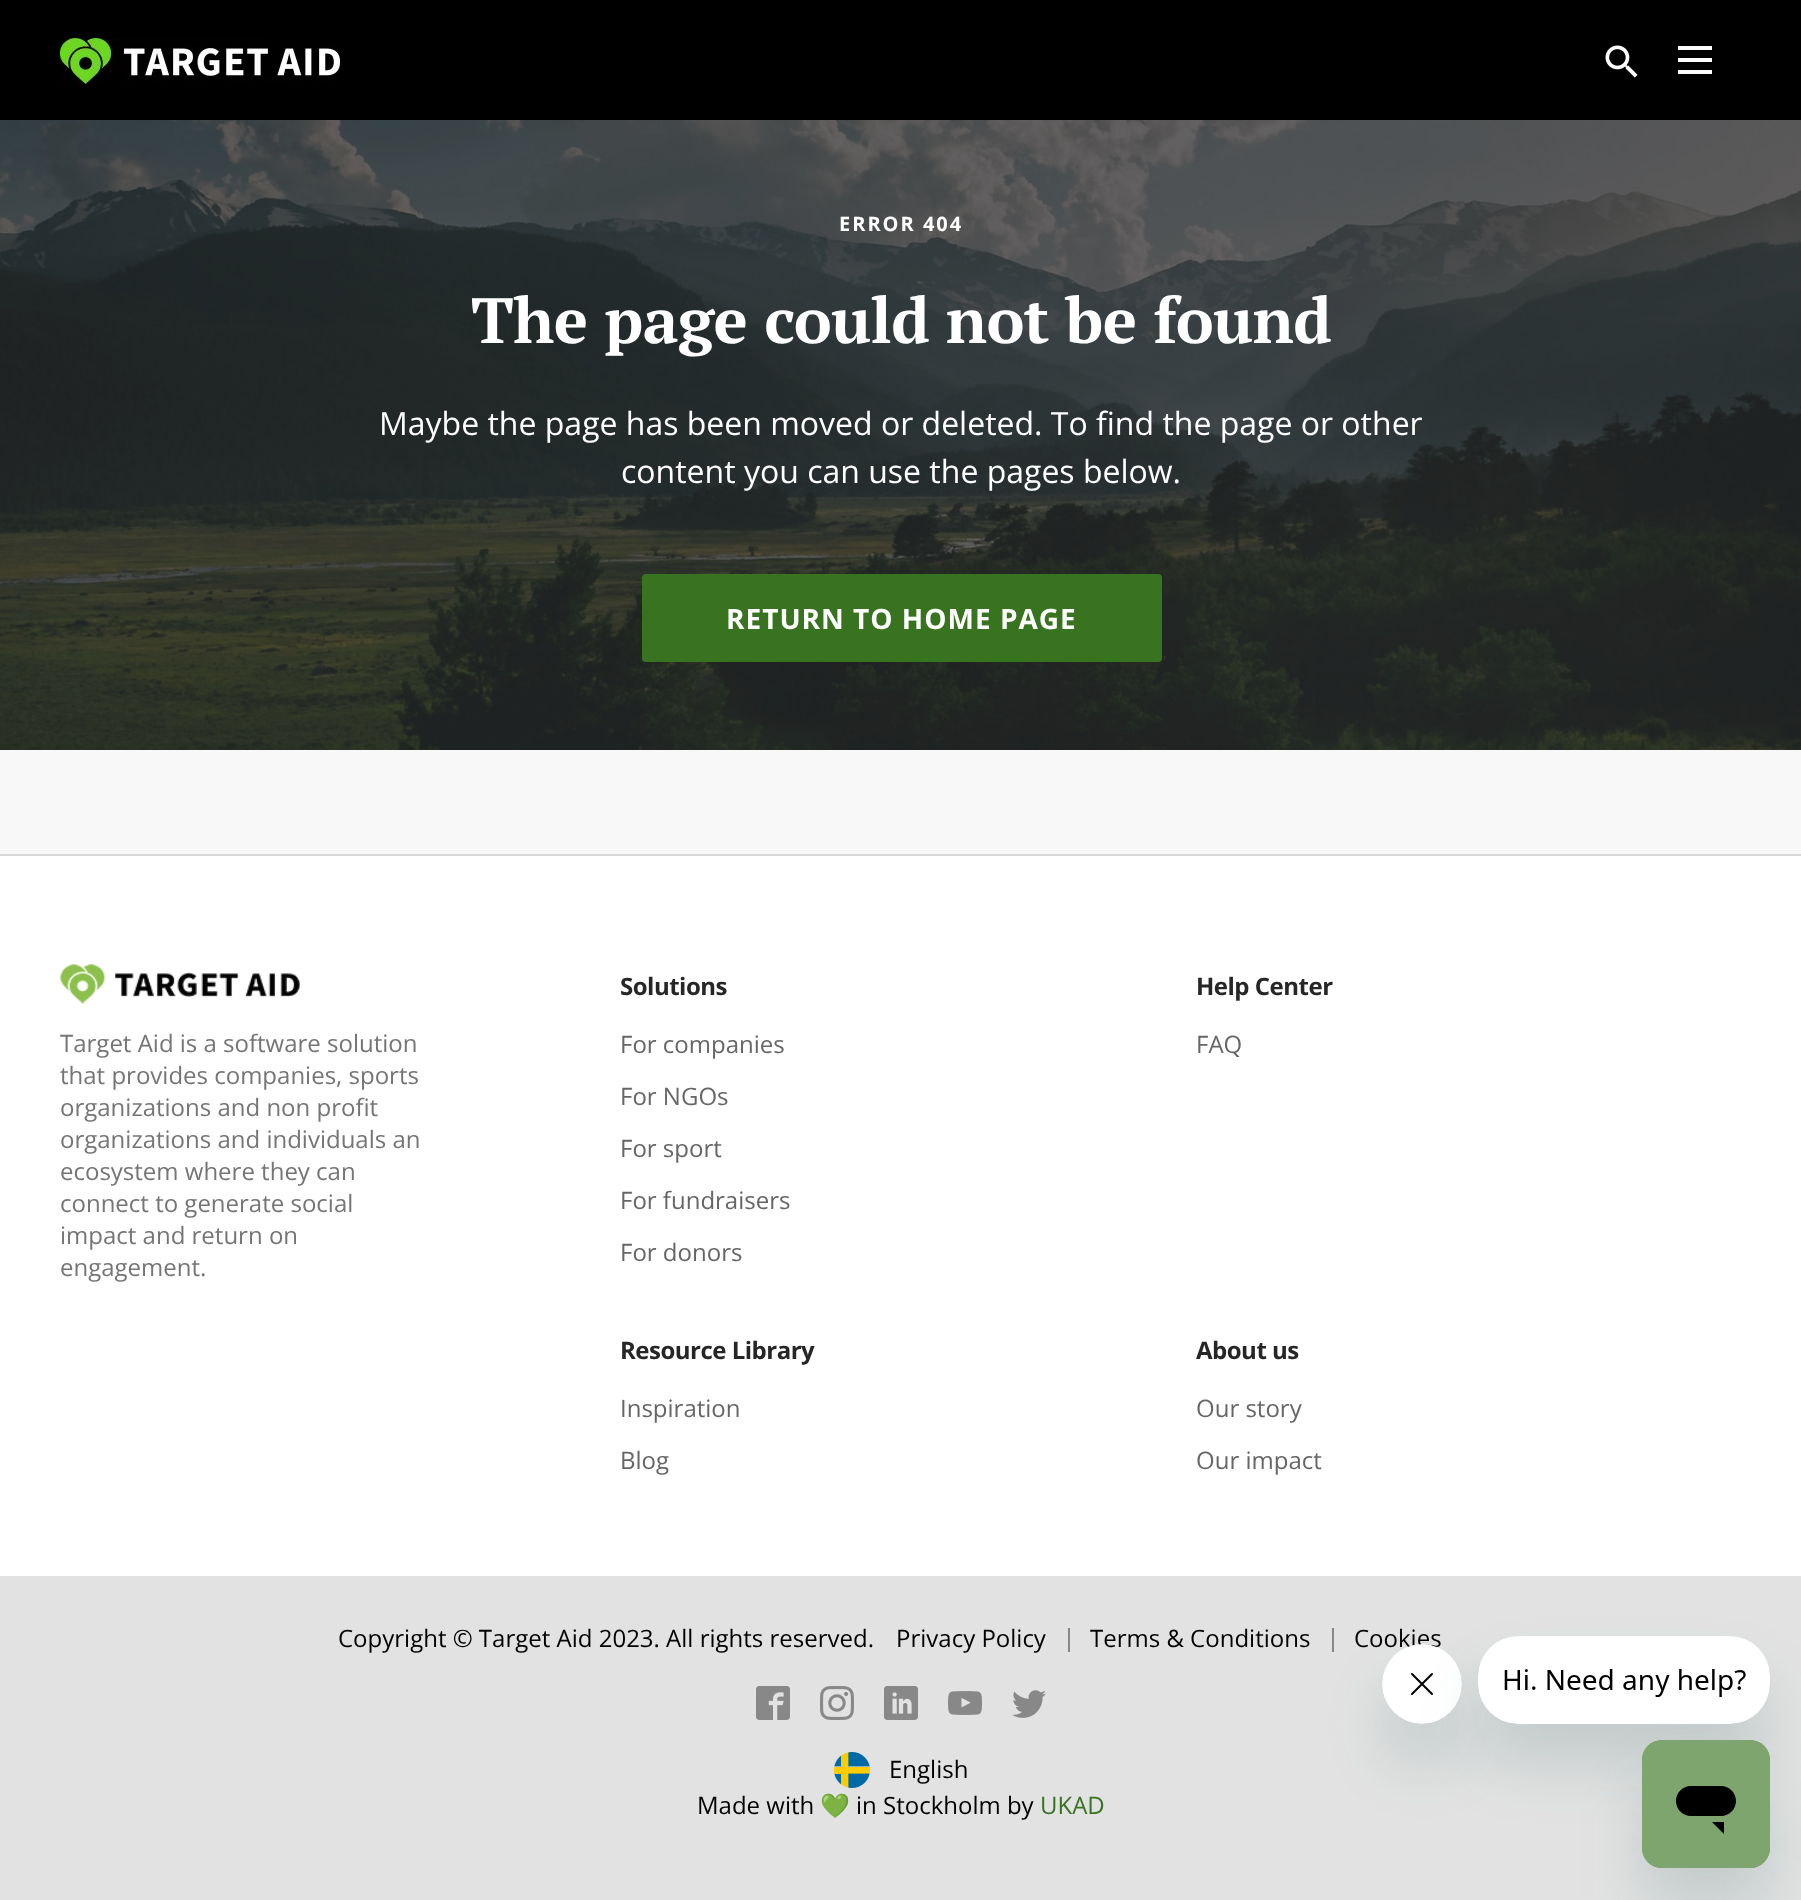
<svg xmlns="http://www.w3.org/2000/svg" width="1801" height="1900" viewBox="0 0 1801 1900">
  <style>
    .t1 { font: bold 20px Open Sans; letter-spacing: 2px; fill: #fff; }
    .t2 { font: bold 64px PT Serif; letter-spacing: -0.5px; fill: #fff; }
    .t3 { font: 32px Open Sans; fill: #fff; }
    .t4 { font: bold 28px Open Sans; letter-spacing: 1px; fill: #fff; }
    .t5 { font: 24px Open Sans; fill: #757575; }
    .t6 { font: bold 24px Open Sans; letter-spacing: -0.5px; fill: #262626; }
    .t7 { font: 24px Open Sans; fill: #666; }
    .t8 { font: 24px Open Sans; fill: #000; }
    .t9 { font: 24px Noto Color Emoji; fill: #000; }
    .t10 { font: 24px Open Sans; fill: #38741f; }
  </style>
  <rect width="100%" height="100%" fill="#f8f8f8"/>
  <rect x="0" y="0" width="1801" height="120" fill="#000"/>
  <image x="60" y="38" width="280" height="46" href="images/1.png"/>
  <image x="1605" y="45" width="33" height="33" href="images/2.png"/>
  <rect x="1678" y="46" width="34" height="4" fill="#fff"/>
  <rect x="1678" y="58" width="34" height="4" fill="#fff"/>
  <rect x="1678" y="70" width="34" height="4" fill="#fff"/>
  <image x="0" y="120" width="1801" height="630" href="images/3.png"/>
  <text x="839" y="231" class="t1">ERROR 404</text>
  <text x="471" y="343" class="t2">The page could not be found</text>
  <text x="379" y="435" class="t3">Maybe the page has been moved or deleted. To find the page or other</text>
  <text x="621" y="483" class="t3">content you can use the pages below.</text>
  <rect x="642" y="574" width="520" height="88" rx="4" fill="#38741f"/>
  <text x="726" y="629" class="t4">RETURN TO HOME PAGE</text>
  <rect x="0" y="856" width="1801" height="720" fill="#fff"/>
  <rect x="0" y="854" width="1801" height="2" fill="#d6d6d6"/>
  <image x="60" y="964" width="240" height="40" href="images/4.png"/>
  <text x="60" y="1052" class="t5">Target Aid is a software solution</text>
  <text x="60" y="1084" class="t5">that provides companies, sports</text>
  <text x="60" y="1116" class="t5">organizations and non profit</text>
  <text x="60" y="1148" class="t5">organizations and individuals an</text>
  <text x="60" y="1180" class="t5">ecosystem where they can</text>
  <text x="60" y="1212" class="t5">connect to generate social</text>
  <text x="60" y="1244" class="t5">impact and return on</text>
  <text x="60" y="1276" class="t5">engagement.</text>
  <text x="620" y="995" class="t6">Solutions</text>
  <text x="620" y="1053" class="t7">For companies</text>
  <text x="620" y="1105" class="t7">For NGOs</text>
  <text x="620" y="1157" class="t7">For sport</text>
  <text x="620" y="1209" class="t7">For fundraisers</text>
  <text x="620" y="1261" class="t7">For donors</text>
  <text x="1196" y="995" class="t6">Help Center</text>
  <text x="1196" y="1053" class="t7">FAQ</text>
  <text x="620" y="1359" class="t6">Resource Library</text>
  <text x="620" y="1417" class="t7">Inspiration</text>
  <text x="620" y="1469" class="t7">Blog</text>
  <text x="1196" y="1359" class="t6">About us</text>
  <text x="1196" y="1417" class="t7">Our story</text>
  <text x="1196" y="1469" class="t7">Our impact</text>
  <rect x="0" y="1576" width="1801" height="324" fill="#e2e2e2"/>
  <text x="338" y="1647" class="t8">Copyright © Target Aid 2023. All rights reserved.</text>
  <text x="896" y="1647" class="t8">Privacy Policy</text>
  <rect x="1068" y="1628" width="2" height="24" fill="#888"/>
  <text x="1090" y="1647" class="t8">Terms &amp; Conditions</text>
  <rect x="1332" y="1628" width="2" height="24" fill="#888"/>
  <text x="1354" y="1647" class="t8">Cookies</text>
  <image x="756" y="1686" width="34" height="34" href="images/5.png"/>
  <image x="820" y="1686" width="34" height="34" href="images/6.png"/>
  <image x="884" y="1686" width="34" height="34" href="images/7.png"/>
  <image x="948" y="1691" width="34" height="24" href="images/8.png"/>
  <image x="1012" y="1690" width="34" height="28" href="images/9.png"/>
  <image x="834" y="1752" width="36" height="36" href="images/10.png"/>
  <text x="889" y="1778" class="t8">English</text>
  <text x="697" y="1814" class="t8">Made with</text>
  <text x="820" y="1814" class="t9">💚</text>
  <text x="856" y="1814" class="t8">in Stockholm by</text>
  <text x="1040" y="1814" class="t10">UKAD</text>
  <rect x="1382" y="1684" width="80" height="80" rx="40" fill="#17494d26" filter="blur(30px)"/>
  <image x="1382" y="1644" width="80" height="80" href="images/12.png"/>
  <rect x="1478" y="1676" width="292" height="88" rx="40" fill="#17494d26" filter="blur(30px)"/>
  <image x="1478" y="1636" width="292" height="88" href="images/11.png"/>
  <rect x="1642" y="1780" width="128" height="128" rx="20" fill="#17494d26" filter="blur(30px)"/>
  <image x="1642" y="1740" width="128" height="128" href="images/13.png"/>
</svg>
